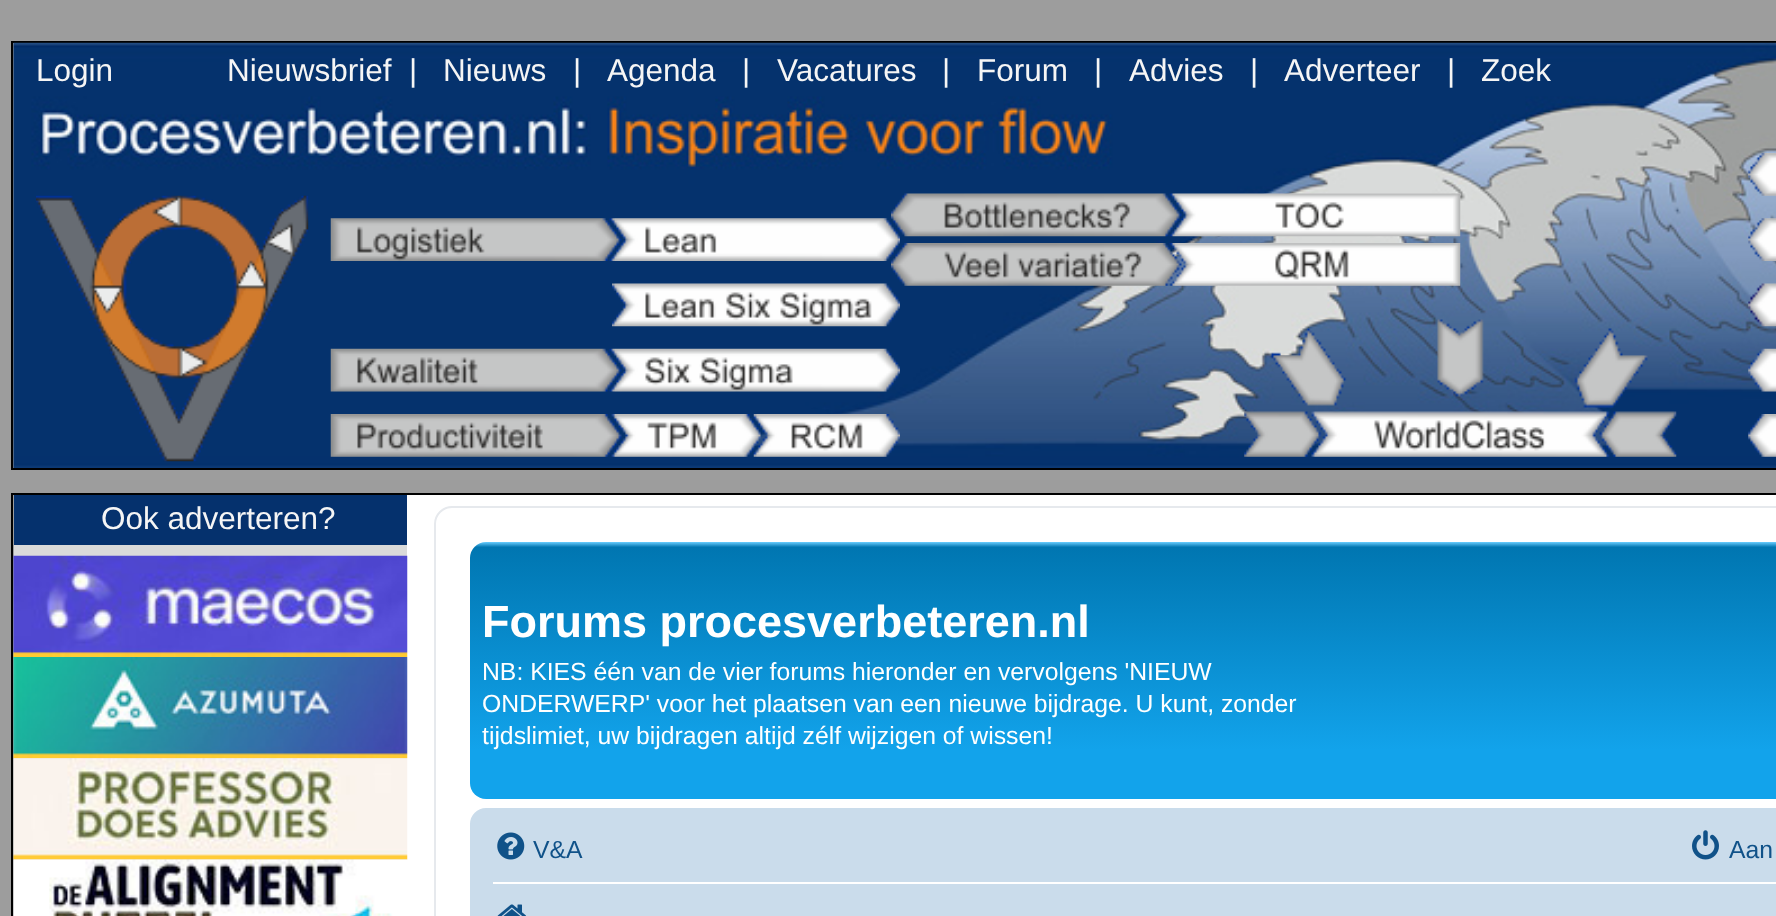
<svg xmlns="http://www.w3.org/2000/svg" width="1776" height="916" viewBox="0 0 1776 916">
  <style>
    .t1 { font: 31.5px Liberation Sans; fill: #f5f5f5; }
    .t2 { font: bold 45px Liberation Sans; fill: #fff; }
    .t3 { font: 24.75px Liberation Sans; fill: #fff; }
    .t4 { font: 24.75px Liberation Sans; fill: #105289; }
  </style>
  <defs>
    <linearGradient id="g1" gradientUnits="userSpaceOnUse" x1="1173" y1="542" x2="1173" y2="799"><stop offset="0" stop-color="#6aceff"/><stop offset="0.02" stop-color="#0076b1"/><stop offset="0.81" stop-color="#12a3eb"/><stop offset="1" stop-color="#12a3eb"/></linearGradient>
  </defs>
  <rect width="100%" height="100%" fill="#9d9d9d"/>
  <rect x="11" y="41" width="1765" height="2" fill="#000"/>
  <rect x="11" y="468" width="1765" height="2" fill="#000"/>
  <rect x="11" y="41" width="2" height="429" fill="#000"/>
  <image x="13" y="42" width="1763" height="426" href="images/1.png"/>
  <text x="36" y="81" class="t1">Login</text>
  <text x="227" y="81" class="t1">Nieuwsbrief</text>
  <text x="409" y="81" class="t1">|</text>
  <text x="443" y="81" class="t1">Nieuws</text>
  <text x="573" y="81" class="t1">|</text>
  <text x="607" y="81" class="t1">Agenda</text>
  <text x="742" y="81" class="t1">|</text>
  <text x="777" y="81" class="t1">Vacatures</text>
  <text x="942" y="81" class="t1">|</text>
  <text x="977" y="81" class="t1">Forum</text>
  <text x="1094" y="81" class="t1">|</text>
  <text x="1129" y="81" class="t1">Advies</text>
  <text x="1250" y="81" class="t1">|</text>
  <text x="1284" y="81" class="t1">Adverteer</text>
  <text x="1447" y="81" class="t1">|</text>
  <text x="1481" y="81" class="t1">Zoek</text>
  <image x="1748" y="153" width="28" height="43" href="images/2.png"/>
  <image x="36" y="195" width="273" height="267" href="images/3.png"/>
  <image x="891" y="193" width="570" height="44" href="images/5.png"/>
  <image x="891" y="243" width="570" height="43" href="images/7.png"/>
  <image x="330" y="218" width="570" height="43" href="images/4.png"/>
  <image x="1748" y="218" width="28" height="43" href="images/6.png"/>
  <image x="612" y="283" width="288" height="44" href="images/8.png"/>
  <image x="1748" y="283" width="28" height="44" href="images/9.png"/>
  <image x="330" y="348" width="570" height="44" href="images/10.png"/>
  <image x="1244" y="319" width="433" height="138" href="images/11.png"/>
  <image x="1748" y="348" width="28" height="44" href="images/12.png"/>
  <image x="753" y="414" width="147" height="43" href="images/14.png"/>
  <image x="330" y="414" width="431" height="43" href="images/13.png"/>
  <image x="1748" y="414" width="28" height="43" href="images/15.png"/>
  <rect x="14" y="545" width="393" height="315" fill="#dadada"/>
  <rect x="11" y="493" width="1765" height="2" fill="#000"/>
  <rect x="11" y="493" width="2" height="423" fill="#000"/>
  <rect x="14" y="495" width="393" height="50" fill="#05316d"/>
  <text x="101" y="529" class="t1">Ook adverteren?</text>
  <rect x="407" y="495" width="1369" height="421" fill="#fff"/>
  <image x="13" y="555" width="395" height="102" href="images/16.png"/>
  <image x="13" y="657" width="395" height="102" href="images/17.png"/>
  <image x="13" y="758" width="395" height="102" href="images/18.png"/>
  <image x="13" y="859" width="394" height="57" href="images/19.png"/>
  <rect x="435" y="507" width="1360" height="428" rx="17" fill="none" stroke="#e6e9ed" stroke-width="2"/>
  <rect x="470" y="542" width="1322" height="257" rx="16" fill="url(#g1)"/>
  <text x="482" y="637" class="t2">Forums procesverbeteren.nl</text>
  <text x="482" y="680" class="t3">NB: KIES één van de vier forums hieronder en vervolgens 'NIEUW</text>
  <text x="482" y="712" class="t3">ONDERWERP' voor het plaatsen van een nieuwe bijdrage. U kunt, zonder</text>
  <text x="482" y="744" class="t3">tijdslimiet, uw bijdragen altijd zélf wijzigen of wissen!</text>
  <rect x="470" y="808" width="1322" height="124" rx="16" fill="#cadceb"/>
  <image x="497" y="832" width="28" height="28" href="images/20.png"/>
  <text x="533" y="858" class="t4">V&amp;A</text>
  <image x="1692" y="830" width="27" height="30" href="images/21.png"/>
  <text x="1729" y="858" class="t4">Aan</text>
  <rect x="493" y="882" width="1283" height="2" fill="#fff"/>
  <image x="497" y="904" width="29" height="12" href="images/22.png"/>
</svg>
